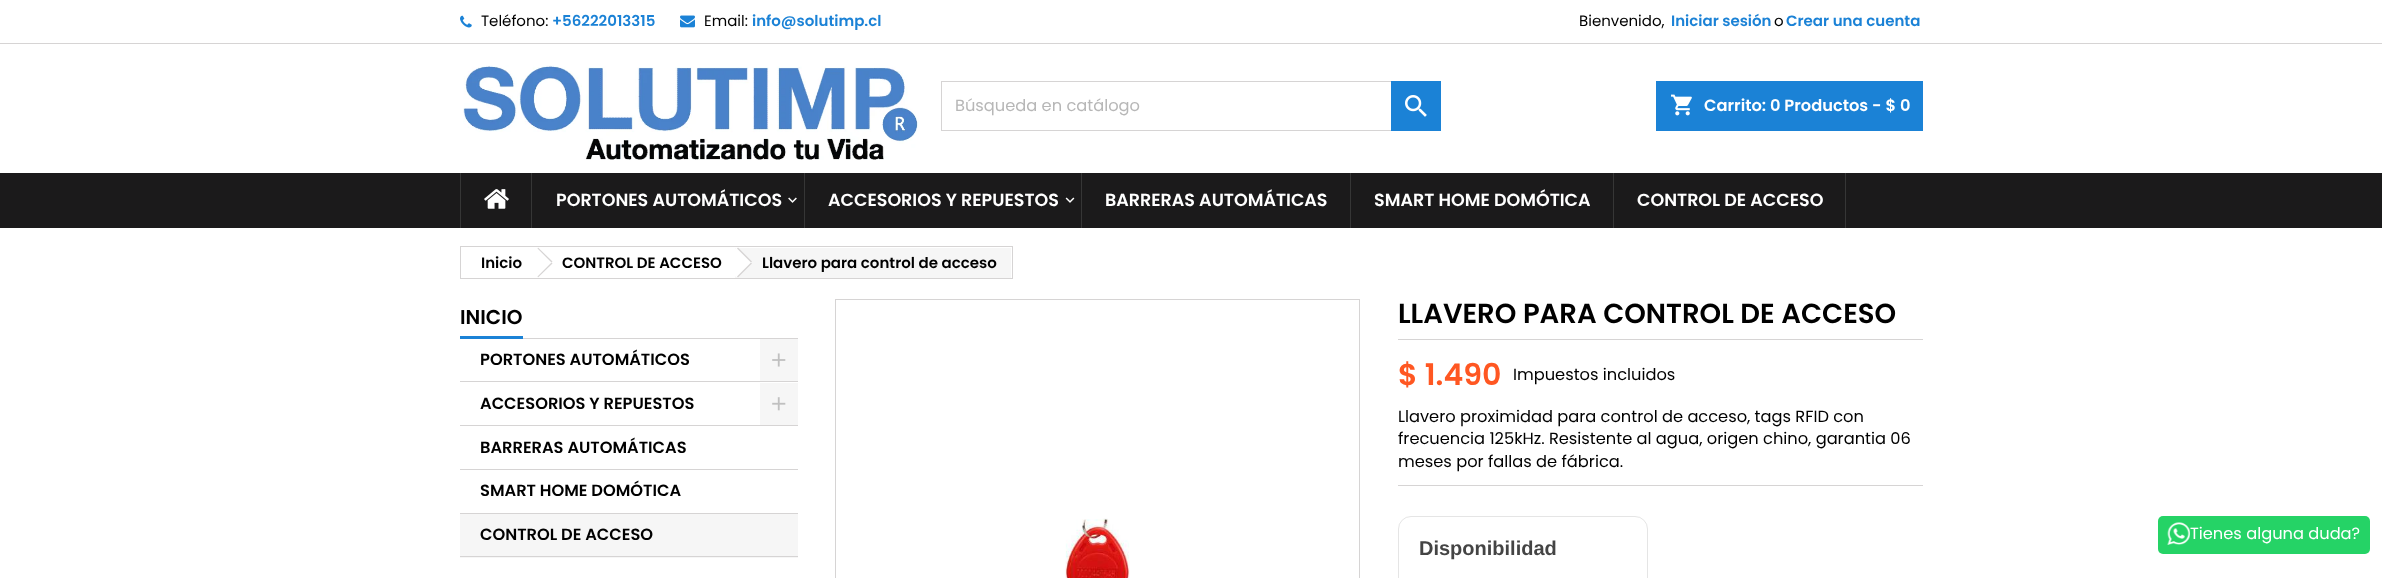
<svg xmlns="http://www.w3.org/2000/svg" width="2382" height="578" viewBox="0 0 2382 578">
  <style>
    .t1 { font: 15px Poppins; fill: #000; }
    .t2 { font: 600 15px Poppins; fill: #1b82d6; }
    .t3 { font: 16.25px Poppins; fill: #b7b7b7; }
    .t4 { font: 600 16.25px Poppins; fill: #fff; }
    .t5 { font: 600 17.5px Poppins; fill: #fff; }
    .t6 { font: 600 15px Poppins; fill: #000; }
    .t7 { font: 600 20px Poppins; fill: #000; }
    .t8 { font: 600 16.25px Poppins; fill: #000; }
    .t9 { font: 600 27.5px Poppins; fill: #000; }
    .t10 { font: 600 30px Poppins; fill: #ff5722; }
    .t11 { font: 16.25px Poppins; fill: #000; }
    .t12 { font: bold 20px Liberation Sans; fill: #444; }
    .t13 { font: 16.25px Poppins; fill: #fff; }
  </style>
  <rect width="100%" height="100%" fill="#fff"/>
  <rect x="0" y="43" width="2382" height="1" fill="#d6d4d4"/>
  <image x="460" y="15" width="12" height="13" href="images/1.png"/>
  <text x="481" y="26" class="t1">Teléfono:</text>
  <text x="552" y="26" class="t2">+56222013315</text>
  <image x="680" y="15" width="15" height="13" href="images/2.png"/>
  <text x="704" y="26" class="t1">Email:</text>
  <text x="752" y="26" class="t2">info@solutimp.cl</text>
  <text x="1579" y="26" class="t1">Bienvenido,</text>
  <text x="1671" y="26" class="t2">Iniciar sesión</text>
  <text x="1774" y="26" class="t1">o</text>
  <text x="1786" y="26" class="t2">Crear una cuenta</text>
  <image x="463" y="65" width="456" height="95" href="images/3.png"/>
  <rect x="941.5" y="81.5" width="499" height="49" fill="none" stroke="#d6d4d4"/>
  <text x="955" y="111" class="t3">Búsqueda en catálogo</text>
  <rect x="1391" y="81" width="50" height="50" fill="#1b82d6"/>
  <image x="1405" y="95" width="22" height="22" href="images/4.png"/>
  <rect x="1656" y="81" width="267" height="50" fill="#1b82d6"/>
  <image x="1671" y="94" width="21" height="22" href="images/5.png"/>
  <text x="1704" y="111" class="t4">Carrito: 0 Productos - $ 0</text>
  <rect x="0" y="173" width="2382" height="55" fill="#1b1a1b"/>
  <rect x="460" y="173" width="1" height="55" fill="#363636"/>
  <image x="484" y="189" width="25" height="20" href="images/6.png"/>
  <rect x="531" y="173" width="1" height="55" fill="#363636"/>
  <text x="556" y="206" class="t5">PORTONES AUTOMÁTICOS</text>
  <image x="788" y="197" width="9" height="6" href="images/7.png"/>
  <rect x="804" y="173" width="1" height="55" fill="#363636"/>
  <text x="828" y="206" class="t5">ACCESORIOS Y REPUESTOS</text>
  <image x="1065" y="197" width="10" height="6" href="images/8.png"/>
  <rect x="1081" y="173" width="1" height="55" fill="#363636"/>
  <text x="1105" y="206" class="t5">BARRERAS AUTOMÁTICAS</text>
  <rect x="1350" y="173" width="1" height="55" fill="#363636"/>
  <text x="1374" y="206" class="t5">SMART HOME DOMÓTICA</text>
  <rect x="1845" y="173" width="1" height="55" fill="#363636"/>
  <rect x="1613" y="173" width="1" height="55" fill="#363636"/>
  <text x="1637" y="206" class="t5">CONTROL DE ACCESO</text>
  <rect x="460.5" y="246.5" width="552" height="32" fill="none" stroke="#d6d4d4"/>
  <text x="481" y="268" class="t6">Inicio</text>
  <path d="M538 247.5L552.5 261.5L551.5 262.5L537.5 248.5Z" fill="#d6d4d4"/>
  <path d="M551.5 262.5L552.5 263.5L538 277.5L537.5 276.5Z" fill="#d6d4d4"/>
  <text x="562" y="268" class="t6">CONTROL DE ACCESO</text>
  <rect x="735" y="248" width="276" height="30" fill="#f6f6f6"/>
  <path d="M739 248.5L751 261C752 262 752 263.5 751 264.5L739 276.5C738 277.5 736.5 277.5 735.5 276.5L723 264.5C722 263.5 722 262 723 261L735.5 248.5C736.5 247.5 738 247.5 739 248.5Z" fill="#fff"/>
  <path d="M738 247.5L752 261.5L751 262.5L737 248.5Z" fill="#d6d4d4"/>
  <path d="M751 262.5L752 263.5L738 277.5L737 276.5Z" fill="#d6d4d4"/>
  <text x="762" y="268" class="t6">Llavero para control de acceso</text>
  <rect x="523" y="338" width="275" height="1" fill="#d6d4d4"/>
  <rect x="460" y="336" width="63" height="3" fill="#1b82d6"/>
  <text x="460" y="324" class="t7">INICIO</text>
  <rect x="460" y="381" width="338" height="1" fill="#d6d4d4"/>
  <text x="480" y="365" class="t8">PORTONES AUTOMÁTICOS</text>
  <rect x="760" y="339" width="38" height="42" fill="#f6f6f6"/>
  <image x="772" y="353" width="14" height="14" href="images/9.png"/>
  <rect x="460" y="425" width="338" height="1" fill="#d6d4d4"/>
  <text x="480" y="409" class="t8">ACCESORIOS Y REPUESTOS</text>
  <rect x="760" y="383" width="38" height="42" fill="#f6f6f6"/>
  <image x="772" y="397" width="14" height="14" href="images/10.png"/>
  <rect x="460" y="469" width="338" height="1" fill="#d6d4d4"/>
  <text x="480" y="453" class="t8">BARRERAS AUTOMÁTICAS</text>
  <rect x="460" y="513" width="338" height="1" fill="#d6d4d4"/>
  <text x="480" y="496" class="t8">SMART HOME DOMÓTICA</text>
  <rect x="460" y="514" width="338" height="44" fill="#f6f6f6"/>
  <rect x="460" y="556" width="338" height="1" fill="#d6d4d4"/>
  <text x="480" y="540" class="t8">CONTROL DE ACCESO</text>
  <rect x="835.5" y="299.5" width="524" height="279" fill="none" stroke="#d6d4d4"/>
  <image x="1065" y="518" width="65" height="60" href="images/11.png"/>
  <text x="1398" y="323" class="t9">LLAVERO PARA CONTROL DE ACCESO</text>
  <rect x="1398" y="339" width="525" height="1" fill="#d6d4d4"/>
  <text x="1398" y="385" class="t10">$ 1.490</text>
  <text x="1513" y="380" class="t11">Impuestos incluidos</text>
  <text x="1398" y="422" class="t11">Llavero proximidad para control de acceso, tags RFID con</text>
  <text x="1398" y="444" class="t11">frecuencia 125kHz. Resistente al agua, origen chino, garantia 06</text>
  <text x="1398" y="467" class="t11">meses por fallas de fábrica.</text>
  <rect x="1398" y="485" width="525" height="1" fill="#d6d4d4"/>
  <rect x="1398.5" y="516.5" width="249" height="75" rx="12.5" fill="none" stroke="#e5e5e5"/>
  <text x="1419" y="555" class="t12">Disponibilidad</text>
  <rect x="2158" y="516" width="212" height="38" rx="5" fill="#25d366"/>
  <image x="2167" y="522" width="23" height="23" href="images/12.png"/>
  <text x="2190" y="539" class="t13">Tienes alguna duda?</text>
</svg>
